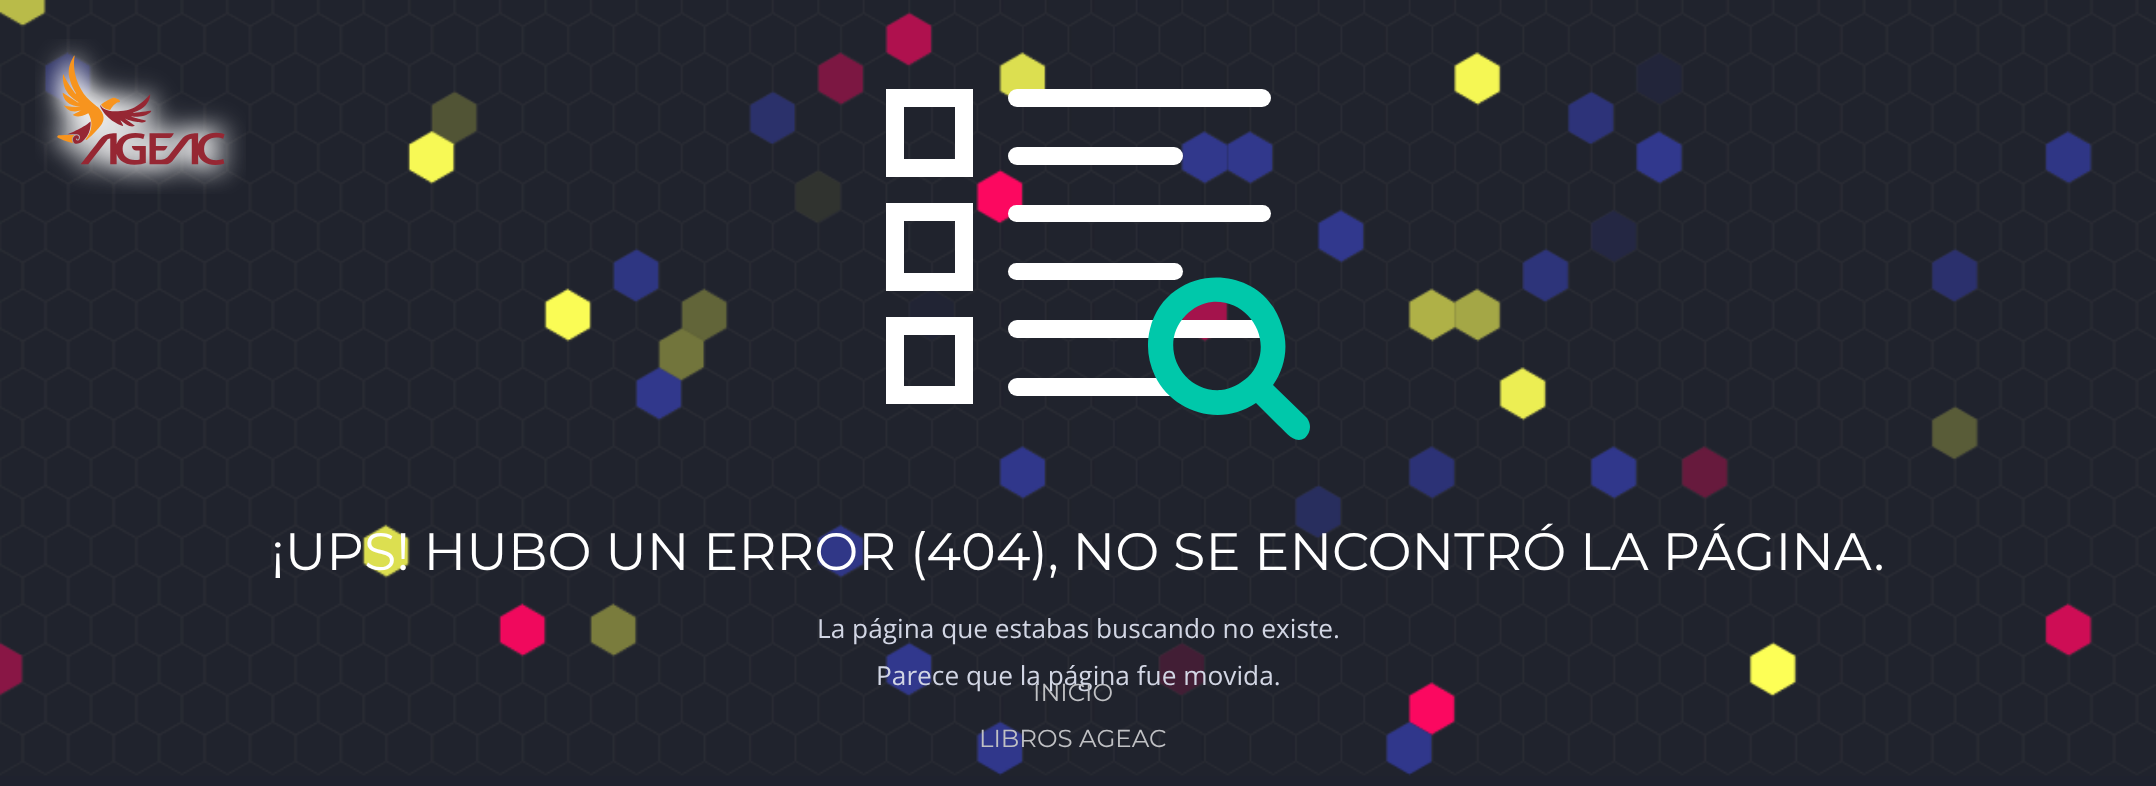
<svg xmlns="http://www.w3.org/2000/svg" width="2156" height="786" viewBox="0 0 2156 786">
  <style>
    .t1 { font: 100 52.5px Montserrat; fill: #fff; }
    .t2 { font: 26.25px Open Sans; fill: #d2d6e4; }
    .t3 { font: 100 24.5px Montserrat; fill: #c0c1c4; }
  </style>
  <rect width="100%" height="100%" fill="#1f222e"/>
  <image x="0" y="0" width="2156" height="776" href="images/1.png"/>
  <image x="35" y="39" width="211" height="155" href="images/2.png"/>
  <rect x="895" y="98" width="69" height="70" fill="none" stroke="#fff" stroke-width="18"/>
  <rect x="895" y="212" width="69" height="70" fill="none" stroke="#fff" stroke-width="18"/>
  <rect x="895" y="326" width="69" height="69" fill="none" stroke="#fff" stroke-width="18"/>
  <rect x="1008" y="89" width="263" height="18" rx="9" fill="#fff"/>
  <rect x="1008" y="147" width="175" height="18" rx="9" fill="#fff"/>
  <rect x="1008" y="205" width="263" height="17" rx="8.5" fill="#fff"/>
  <rect x="1008" y="263" width="175" height="17" rx="8.5" fill="#fff"/>
  <rect x="1008" y="320" width="263" height="18" rx="9" fill="#fff"/>
  <rect x="1008" y="378" width="175" height="18" rx="9" fill="#fff"/>
  <path d="M1248 377C1277 348 1253 299 1212 302C1202 303 1193 308 1186 315C1157 344 1181 393 1221 390C1231 389 1240 384 1248 377ZM1310 427C1310 431 1308 435 1305 438C1294 445 1285 431 1278 425L1256 403C1221 427 1173 413 1155 376C1148 361 1146 345 1150 329C1167 262 1262 260 1282 326C1289 346 1285 368 1273 385L1307 418C1309 421 1310 424 1310 427Z" fill="#00c8aa"/>
  <text x="271" y="570" class="t1">¡UPS! HUBO UN ERROR (404), NO SE ENCONTRÓ LA PÁGINA.</text>
  <text x="817" y="638" class="t2">La página que estabas buscando no existe.</text>
  <text x="876" y="685" class="t2">Parece que la página fue movida.</text>
  <text x="1033" y="701" class="t3">INICIO</text>
  <text x="979" y="747" class="t3">LIBROS AGEAC</text>
</svg>
